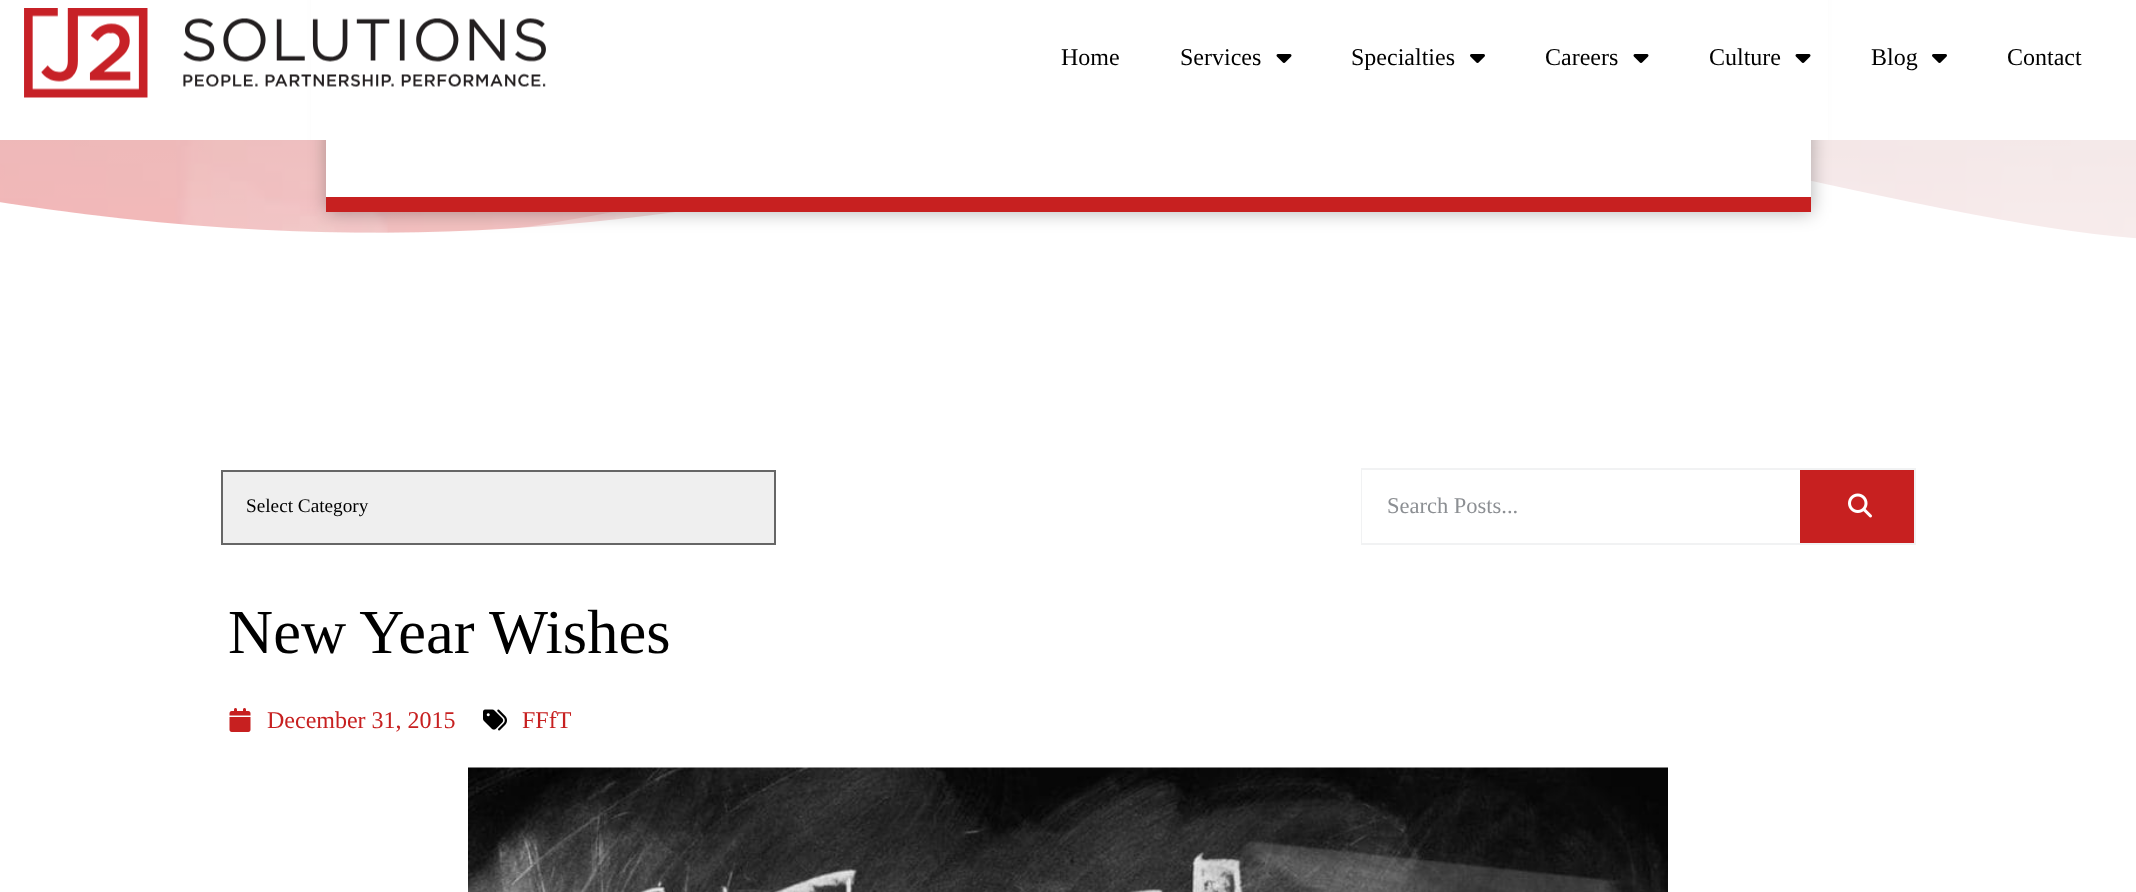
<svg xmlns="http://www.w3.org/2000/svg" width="2136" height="892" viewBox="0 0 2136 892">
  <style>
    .t1 { font: 24px Liberation Serif; fill: #000; }
    .t2 { font: 19.25px Liberation Serif; fill: #000; }
    .t3 { font: 22.5px Liberation Serif; fill: #8c8f93; }
    .t4 { font: 62.5px Liberation Serif; fill: #000; }
    .t5 { font: 24px Liberation Serif; fill: #c72020; }
  </style>
  <defs>
    <linearGradient id="g1" gradientUnits="userSpaceOnUse" x1="1068" y1="-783" x2="1068" y2="267"><stop offset="0.2" stop-color="#000" stop-opacity="0.6"/><stop offset="1" stop-color="#000" stop-opacity="0.12"/></linearGradient>
  </defs>
  <rect width="100%" height="100%" fill="#fff"/>
  <image x="0" y="140" width="2136" height="99" href="images/4.png"/>
  <rect x="0" y="140" width="2136" height="99" fill="url(#g1)"/>
  <image x="0" y="140" width="2136" height="127" href="images/5.png"/>
  <rect x="327" y="-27" width="1485" height="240" fill="#00000047" filter="blur(9px)"/>
  <rect x="311" y="0" width="1517" height="140" fill="#fff"/>
  <image x="24" y="8" width="522" height="90" href="images/1.png"/>
  <text x="1061" y="65" class="t1">Home</text>
  <text x="1180" y="65" class="t1">Services</text>
  <image x="1276" y="54" width="16" height="9" href="images/2.png"/>
  <text x="1351" y="65" class="t1">Specialties</text>
  <image x="1470" y="54" width="15" height="9" href="images/3.png"/>
  <text x="1545" y="65" class="t1">Careers</text>
  <image x="1633" y="54" width="16" height="9" href="images/2.png"/>
  <text x="1709" y="65" class="t1">Culture</text>
  <image x="1795" y="54" width="16" height="9" href="images/2.png"/>
  <text x="1871" y="65" class="t1">Blog</text>
  <image x="1932" y="54" width="15" height="9" href="images/3.png"/>
  <text x="2007" y="65" class="t1">Contact</text>
  <rect x="326" y="140" width="1485" height="57" fill="#fff"/>
  <rect x="326" y="197" width="1485" height="15" fill="#c72020"/>
  <rect x="222" y="471" width="553" height="73" fill="#efefef" stroke="#666" stroke-width="2"/>
  <text x="246" y="512" class="t2">Select Category</text>
  <rect x="1361" y="468" width="555" height="77" fill="#f1f2f3"/>
  <rect x="1362" y="470" width="438" height="73" fill="#fff"/>
  <text x="1387" y="513" class="t3">Search Posts...</text>
  <rect x="1800" y="470" width="114" height="73" fill="#c72020"/>
  <image x="1848" y="493" width="24" height="25" href="images/6.png"/>
  <text x="228" y="653" class="t4">New Year Wishes</text>
  <image x="229" y="708" width="22" height="24" href="images/7.png"/>
  <text x="267" y="728" class="t5">December 31, 2015</text>
  <image x="483" y="709" width="24" height="22" href="images/8.png"/>
  <text x="522" y="728" class="t5">FFfT</text>
  <image x="468" y="767" width="1200" height="125" href="images/9.png"/>
</svg>
